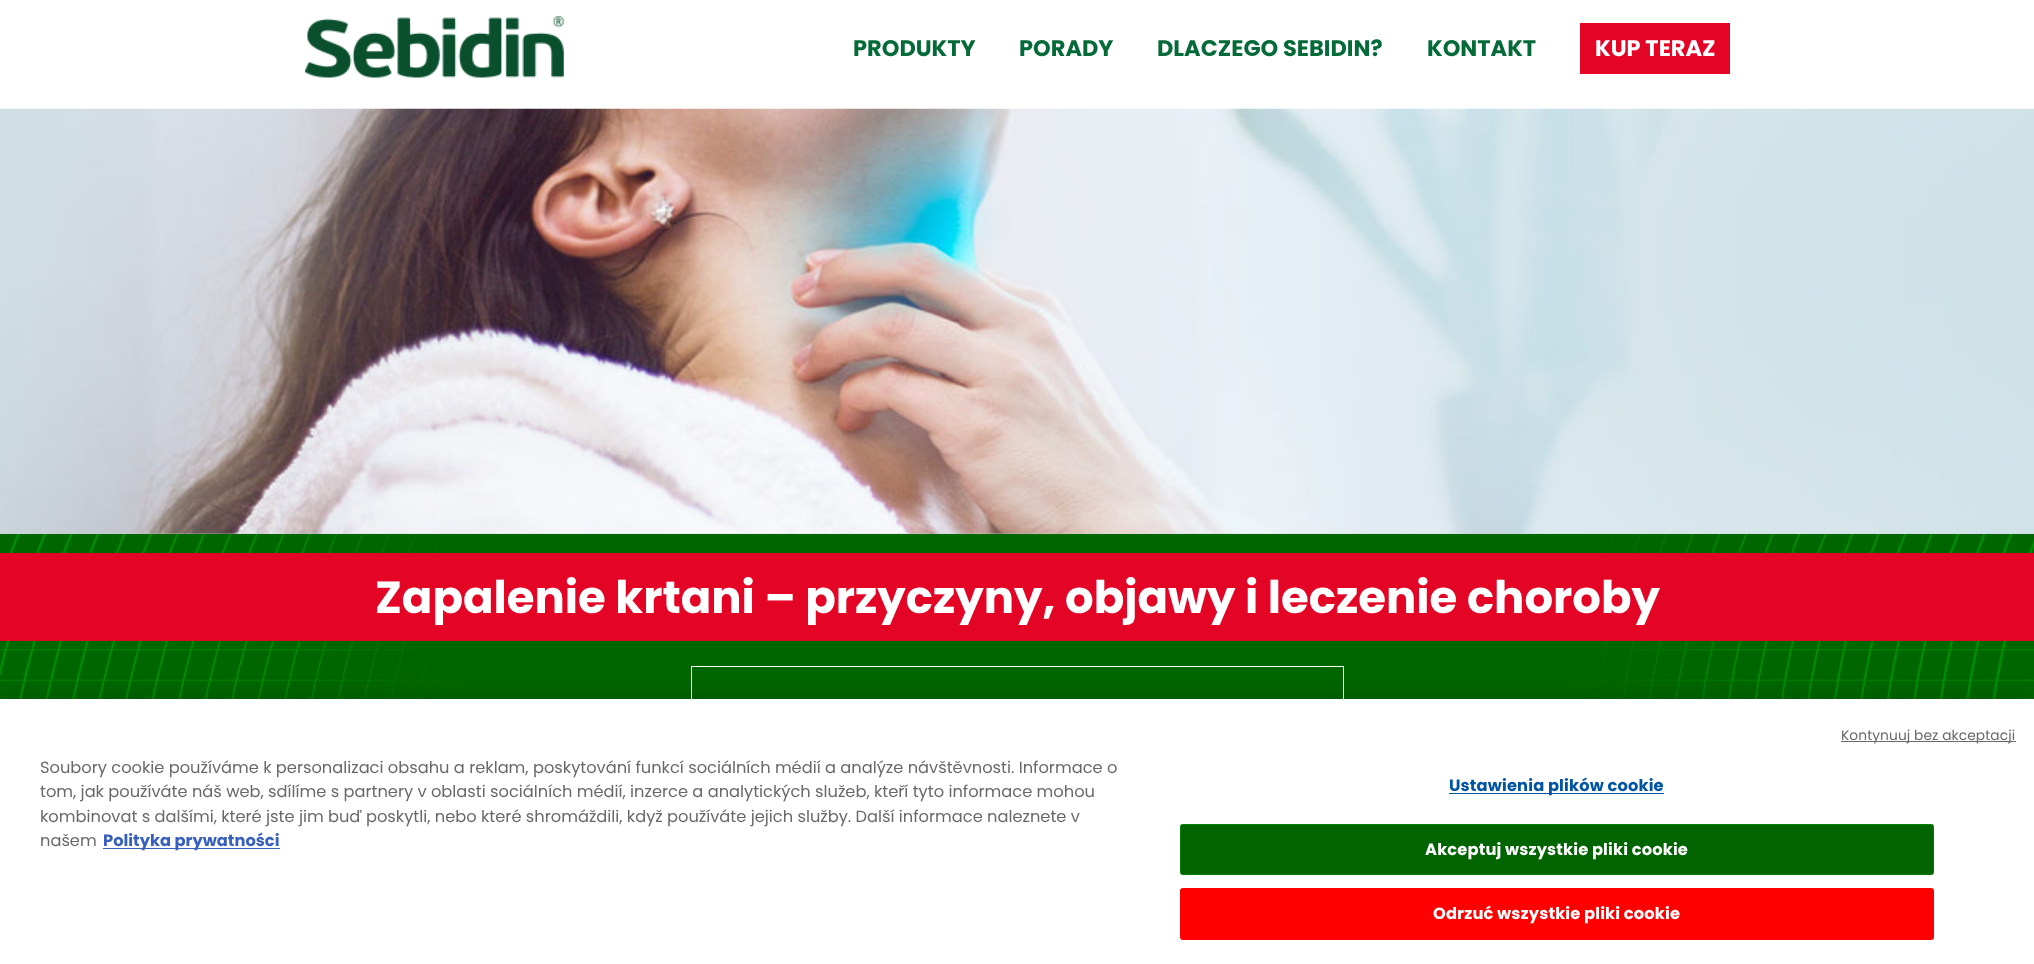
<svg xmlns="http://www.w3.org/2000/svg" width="2034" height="964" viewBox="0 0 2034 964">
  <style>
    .t1 { font: bold 22.5px Poppins; fill: #046a38; }
    .t2 { font: bold 22.5px Poppins; fill: #fff; }
    .t3 { font: bold 45px Poppins; fill: #fff; }
    .t4 { font: 13.75px Poppins; letter-spacing: 0.1px; fill: #696969; }
    .t5 { font: 16.25px Poppins; fill: #696969; }
    .t6 { font: bold 16.25px Poppins; fill: #3860be; }
    .t7 { font: bold 16.25px Poppins; letter-spacing: 0.15px; fill: #0054a4; }
    .t8 { font: bold 16.25px Poppins; letter-spacing: 0.15px; fill: #fff; }
  </style>
  <rect width="100%" height="100%" fill="#fff"/>
  <image x="305" y="16" width="259" height="62" href="images/1.png"/>
  <text x="853" y="56" class="t1">PRODUKTY</text>
  <text x="1019" y="56" class="t1">PORADY</text>
  <text x="1157" y="56" class="t1">DLACZEGO SEBIDIN?</text>
  <text x="1427" y="56" class="t1">KONTAKT</text>
  <rect x="1580" y="23" width="150" height="51" fill="#e30426"/>
  <text x="1595" y="56" class="t2">KUP TERAZ</text>
  <image x="0" y="108" width="2034" height="426" href="images/2.png"/>
  <image x="0" y="533" width="2034" height="166" href="images/3.png"/>
  <rect x="0" y="553" width="2034" height="88" fill="#e30426"/>
  <text x="375" y="613" class="t3">Zapalenie krtani – przyczyny, objawy i leczenie choroby</text>
  <rect x="691.5" y="666.5" width="652" height="72" fill="none" stroke="#fff"/>
  <rect x="0" y="699" width="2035" height="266" fill="#00000033" filter="blur(11px)"/>
  <rect x="0" y="699" width="2034" height="265" fill="#fff"/>
  <rect x="1841" y="741" width="175" height="1" fill="#696969"/>
  <text x="1841" y="740" class="t4">Kontynuuj bez akceptacji</text>
  <text x="40" y="773" class="t5">Soubory cookie používáme k personalizaci obsahu a reklam, poskytování funkcí sociálních médií a analýze návštěvnosti. Informace o</text>
  <text x="40" y="797" class="t5">tom, jak používáte náš web, sdílíme s partnery v oblasti sociálních médií, inzerce a analytických služeb, kteří tyto informace mohou</text>
  <text x="40" y="822" class="t5">kombinovat s dalšími, které jste jim buď poskytli, nebo které shromáždili, když používáte jejich služby. Další informace naleznete v</text>
  <text x="40" y="846" class="t5">našem</text>
  <rect x="103" y="848" width="177" height="1" fill="#3860be"/>
  <text x="103" y="846" class="t6">Polityka prywatności</text>
  <rect x="1449" y="793" width="215" height="1" fill="#0054a4"/>
  <text x="1449" y="791" class="t7">Ustawienia plików cookie</text>
  <rect x="1180.5" y="824.5" width="753" height="50" rx="2" fill="#006400" stroke="#008000"/>
  <text x="1425" y="855" class="t8">Akceptuj wszystkie pliki cookie</text>
  <rect x="1180.5" y="888.5" width="753" height="51" rx="2" fill="#f00" stroke="#f00"/>
  <text x="1433" y="919" class="t8">Odrzuć wszystkie pliki cookie</text>
</svg>
